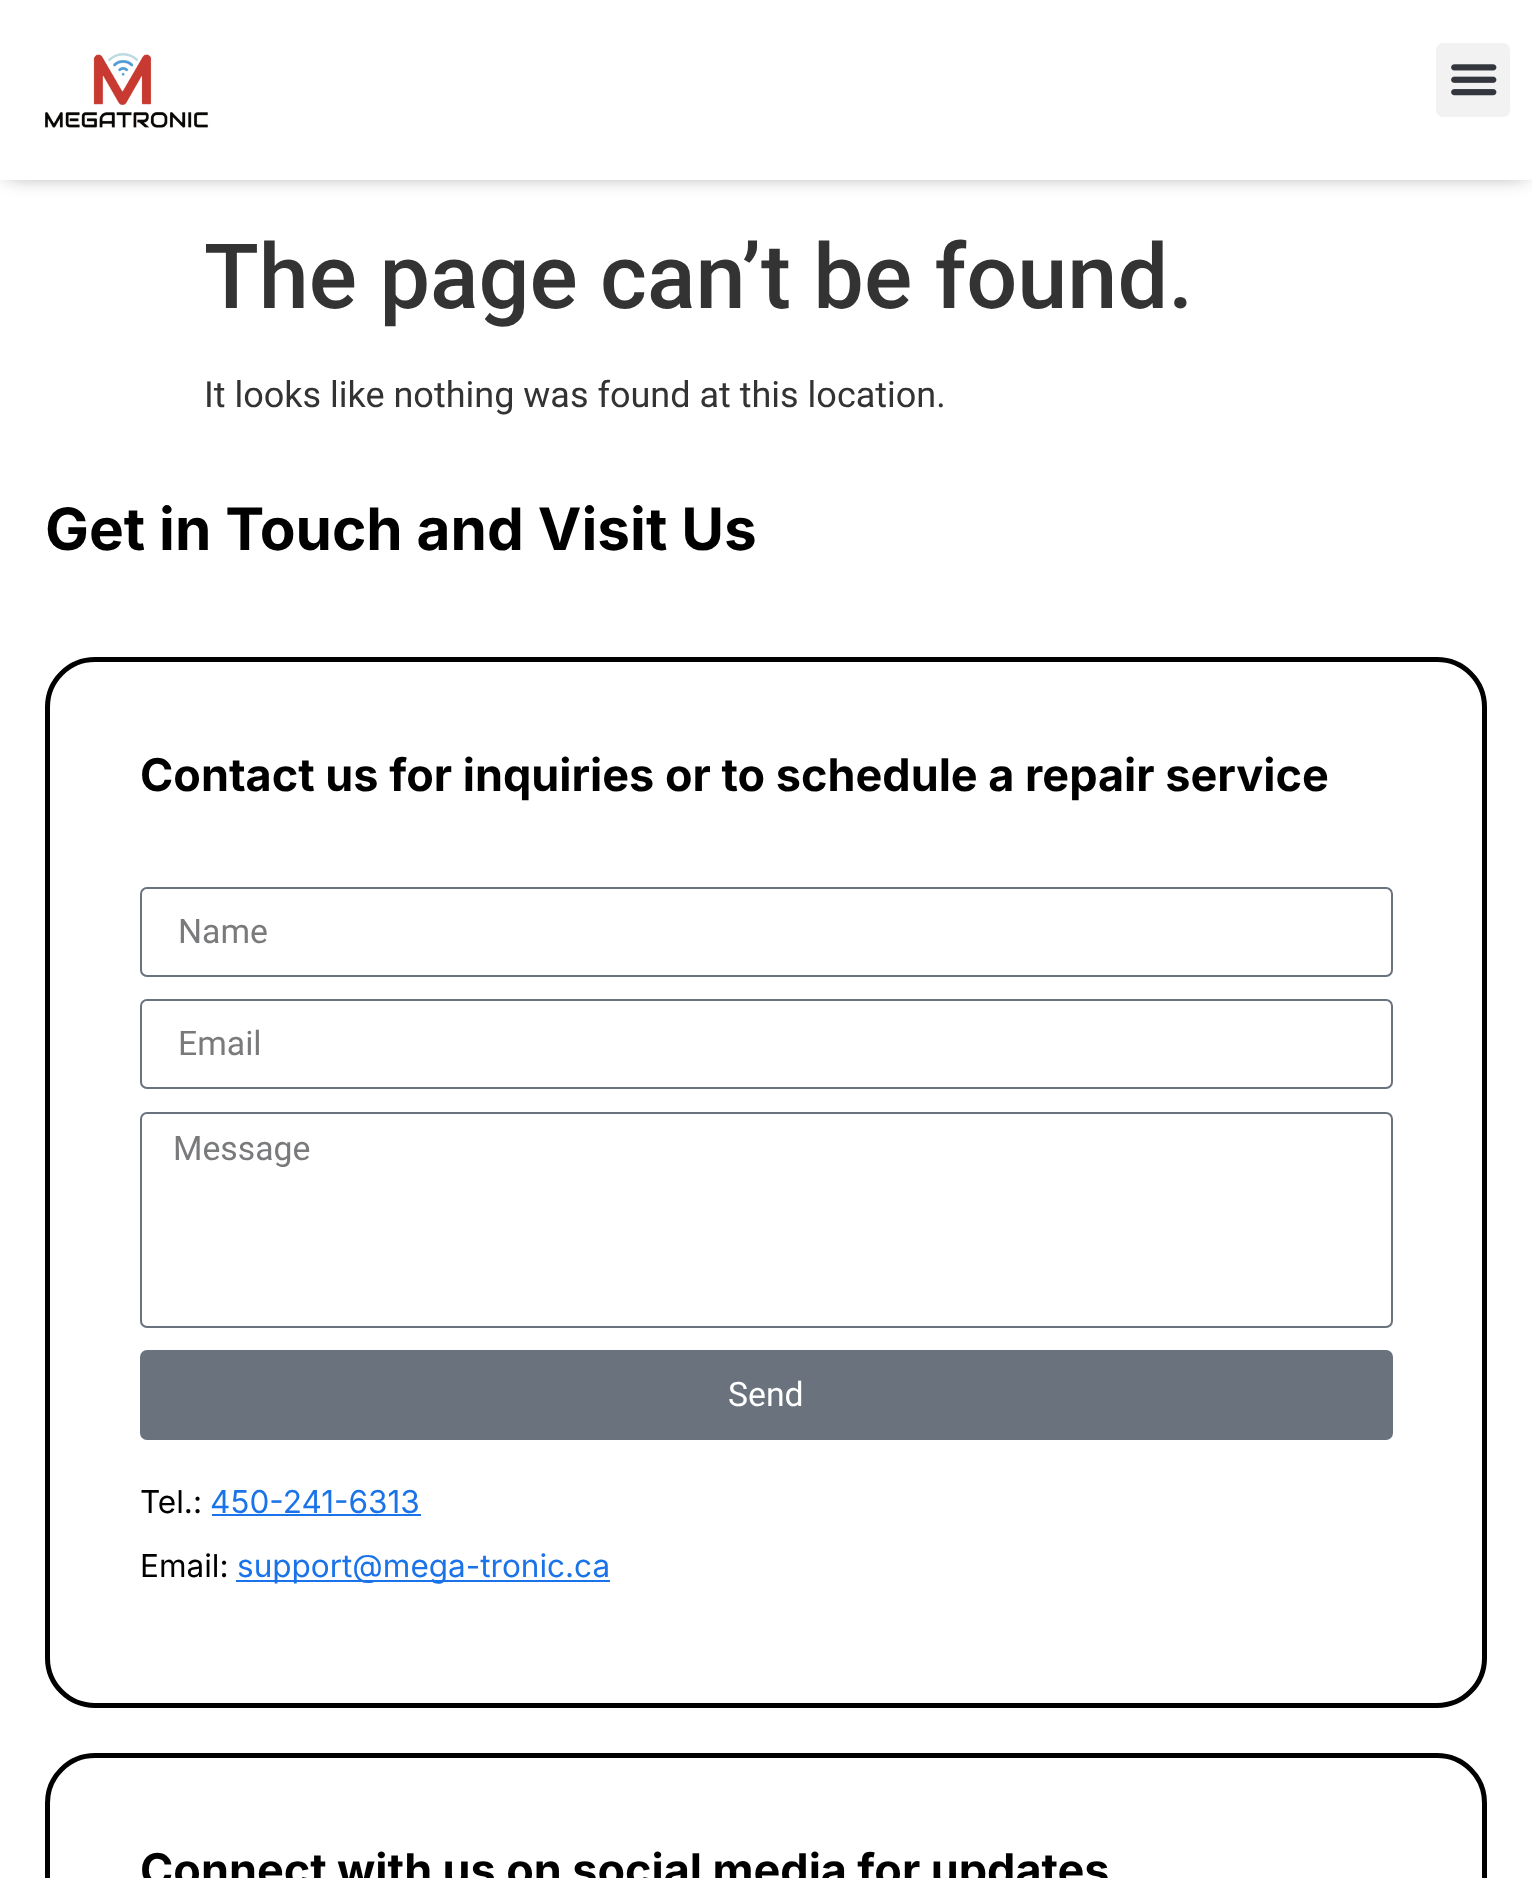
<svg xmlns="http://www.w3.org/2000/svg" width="1532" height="1878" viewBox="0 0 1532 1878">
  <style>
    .t1 { font: 500 90px Roboto; fill: #333; }
    .t2 { font: 36px Roboto; fill: #333; }
    .t3 { font: bold 58.5px Inter; fill: #000; }
    .t4 { font: bold 45px Inter; fill: #000; }
    .t5 { font: 33.75px Roboto; fill: #797a7c; }
    .t6 { font: 33.75px Roboto; fill: #fff; }
    .t7 { font: 31.5px Inter; fill: #000; }
    .t8 { font: 31.5px Inter; fill: #1a73e8; }
  </style>
  <rect width="100%" height="100%" fill="#fff"/>
  <rect x="7" y="7" width="1519" height="166" fill="#00000080" filter="blur(11px)"/>
  <rect x="0" y="0" width="1532" height="180" rx="2" fill="#fff"/>
  <image x="45" y="52" width="164" height="76" href="images/1.png"/>
  <rect x="1436" y="43" width="74" height="74" rx="7" fill="#f2f2f2"/>
  <image x="1451" y="64" width="46" height="32" href="images/2.png"/>
  <text x="204" y="308" class="t1">The page can’t be found.</text>
  <text x="204" y="407" class="t2">It looks like nothing was found at this location.</text>
  <text x="45" y="550" class="t3">Get in Touch and Visit Us</text>
  <rect x="47.5" y="659.5" width="1437" height="1046" rx="47.5" fill="none" stroke="#000" stroke-width="5"/>
  <text x="140" y="791" class="t4">Contact us for inquiries or to schedule a repair service</text>
  <rect x="141" y="888" width="1251" height="88" rx="6" fill="none" stroke="#69727d" stroke-width="2"/>
  <text x="178" y="943" class="t5">Name</text>
  <rect x="141" y="1000" width="1251" height="88" rx="6" fill="none" stroke="#69727d" stroke-width="2"/>
  <text x="178" y="1055" class="t5">Email</text>
  <rect x="141" y="1113" width="1251" height="214" rx="6" fill="none" stroke="#69727d" stroke-width="2"/>
  <text x="173" y="1160" class="t5">Message</text>
  <rect x="140" y="1350" width="1253" height="90" rx="7" fill="#69727d"/>
  <text x="728" y="1406" class="t6">Send</text>
  <text x="140" y="1513" class="t7">Tel.:</text>
  <text x="210" y="1513" class="t8">450-241-6313</text>
  <rect x="212" y="1514" width="209" height="2" fill="#1a73e8"/>
  <text x="140" y="1577" class="t7">Email:</text>
  <rect x="236" y="1580" width="374" height="2" fill="#1a73e8"/>
  <text x="237" y="1577" class="t8">support@mega-tronic.ca</text>
  <rect x="47.5" y="1755.5" width="1437" height="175" rx="47.5" fill="none" stroke="#000" stroke-width="5"/>
  <text x="140" y="1886" word-spacing="-0.25" class="t4">Connect with us on social media for updates</text>
</svg>
